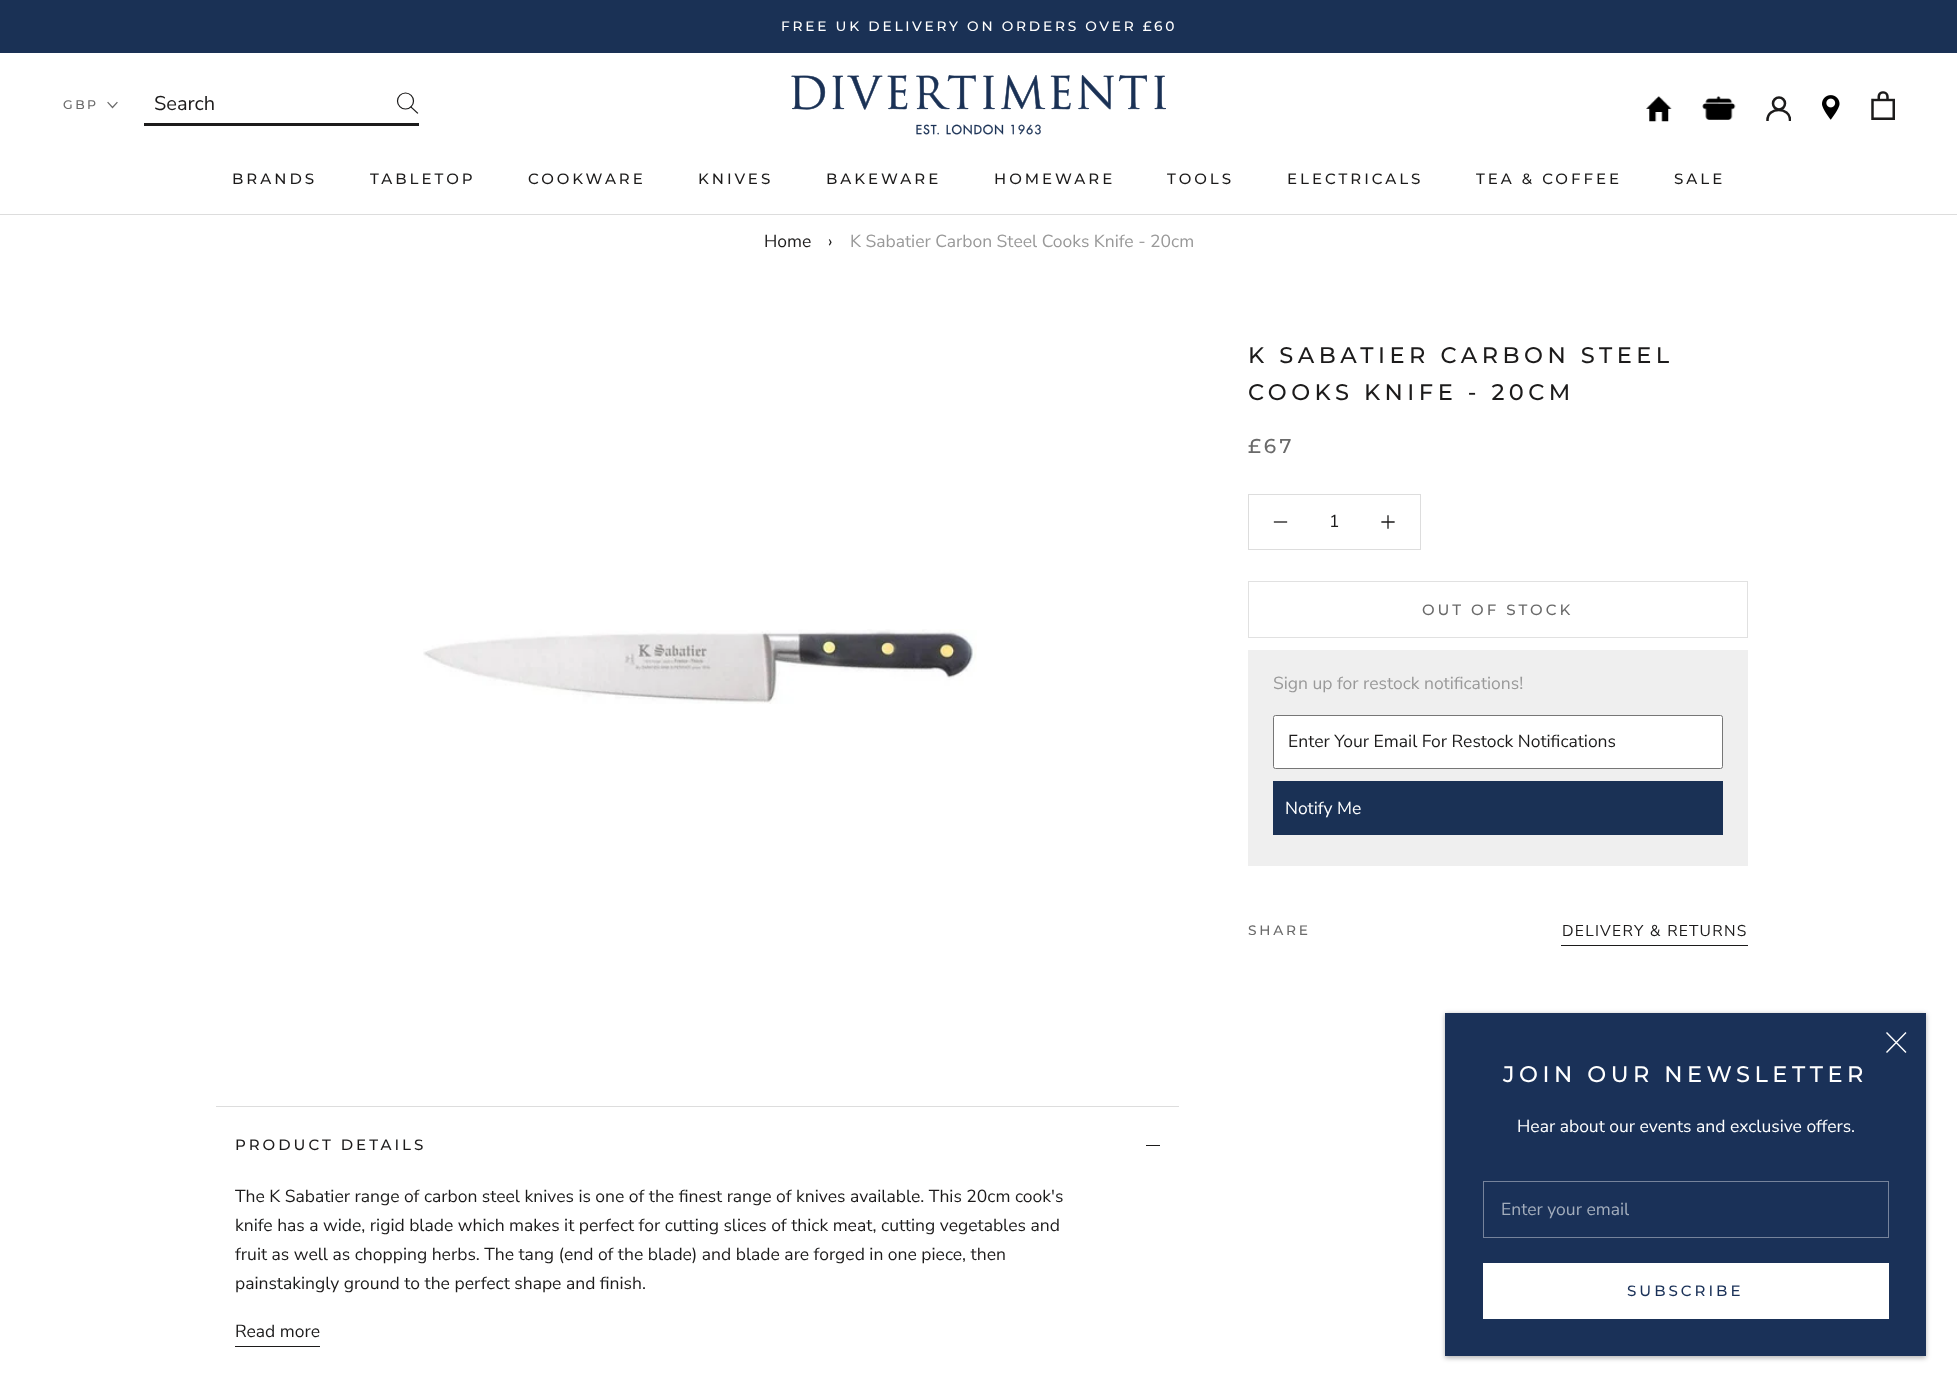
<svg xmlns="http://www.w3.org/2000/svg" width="1957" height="1387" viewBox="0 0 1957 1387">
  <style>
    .t1 { font: 500 13.75px Montserrat; letter-spacing: 2.75px; fill: #fff; }
    .t2 { font: 500 12.5px Montserrat; letter-spacing: 2.5px; fill: #6a6a6a; }
    .t3 { font: 20px Nunito Sans; fill: #1c1b1b; }
    .t4 { font: 500 15px Montserrat; letter-spacing: 3px; fill: #1c1b1b; }
    .t5 { font: 17.5px Nunito Sans; fill: #1c1b1b; }
    .t6 { font: 17.5px Nunito Sans; fill: #999; }
    .t7 { font: 500 22.5px Montserrat; letter-spacing: 4.5px; fill: #1c1b1b; }
    .t8 { font: 500 20px Montserrat; letter-spacing: 3.5px; fill: #6a6a6a; }
    .t9 { font: 500 15px Montserrat; letter-spacing: 3px; fill: #6a6a6a; }
    .t10 { font: 17.5px Nunito Sans; fill: #fff; }
    .t11 { font: 500 13.75px Montserrat; letter-spacing: 2.75px; fill: #6a6a6a; }
    .t12 { font: 15.6px Nunito Sans; letter-spacing: 1.25px; fill: #1c1b1b; }
    .t13 { font: 500 22.5px Montserrat; letter-spacing: 4.5px; fill: #fff; }
    .t14 { font: 17.5px Nunito Sans; fill: #a3adbc; }
    .t15 { font: 500 15px Montserrat; letter-spacing: 3px; fill: #1a3158; }
  </style>
  <defs>
    <clipPath id="clip1"><rect x="1766" y="96" width="25" height="25"/></clipPath>
  </defs>
  <rect width="100%" height="100%" fill="#fff"/>
  <rect x="0" y="0" width="1957" height="53" fill="#1a3155"/>
  <text x="781" y="31" class="t1">FREE UK DELIVERY ON ORDERS OVER £60</text>
  <rect x="0" y="214" width="1957" height="1" fill="#ddd"/>
  <image x="791" y="75" width="375" height="60" href="images/1.png"/>
  <image x="1646" y="96" width="26" height="26" href="images/2.png"/>
  <image x="1702" y="96" width="34" height="24" href="images/3.png"/>
  <g clip-path="url(#clip1)">
    <path d="M1767.5 120C1767.5 106.5 1790 106.5 1790 120" fill="none" stroke="#1c1b1b" stroke-width="2.5" stroke-linecap="square"/>
  </g>
  <circle cx="1779" cy="103.5" r="6" fill="none" stroke="#1c1b1b" stroke-width="2.5"/>
  <image x="1822" y="95" width="18" height="25" href="images/4.png"/>
  <image x="1871" y="91" width="24" height="29" href="images/5.png"/>
  <text x="63" y="109" class="t2">GBP</text>
  <path d="M117 102.5L112.5 107.5L108 102.5" fill="none" stroke="#6a6a6a" stroke-width="1.2" stroke-linecap="square"/>
  <rect x="144" y="123" width="275" height="3" fill="#1c1b1b"/>
  <text x="154" y="110" class="t3">Search</text>
  <path d="M417.5 113L411 107" fill="none" stroke="#1c1b1b" stroke-width="1.2" stroke-linecap="square"/>
  <circle cx="405.5" cy="101" r="8" fill="none" stroke="#1c1b1b" stroke-width="1.2"/>
  <text x="232" y="184" class="t4">BRANDS</text>
  <text x="370" y="184" class="t4">TABLETOP</text>
  <text x="528" y="184" class="t4">COOKWARE</text>
  <text x="698" y="184" class="t4">KNIVES</text>
  <text x="826" y="184" class="t4">BAKEWARE</text>
  <text x="994" y="184" class="t4">HOMEWARE</text>
  <text x="1167" y="184" class="t4">TOOLS</text>
  <text x="1287" y="184" class="t4">ELECTRICALS</text>
  <text x="1476" y="184" class="t4">TEA &amp; COFFEE</text>
  <text x="1674" y="184" class="t4">SALE</text>
  <text x="764" y="247" class="t5">Home</text>
  <text x="828" y="247" class="t5">›</text>
  <text x="850" y="247" class="t6">K Sabatier Carbon Steel Cooks Knife - 20cm</text>
  <image x="423" y="629" width="554" height="75" href="images/6.png"/>
  <text x="1248" y="363" class="t7">K SABATIER CARBON STEEL</text>
  <text x="1248" y="400" class="t7">COOKS KNIFE - 20CM</text>
  <text x="1248" y="453" class="t8">£67</text>
  <rect x="1248.5" y="494.5" width="172" height="55" fill="none" stroke="#ddd"/>
  <path d="M1274.5 522H1286.5" fill="none" stroke="#1c1b1b" stroke-width="1.3" stroke-linecap="square"/>
  <text x="1329" y="527" class="t5">1</text>
  <path d="M1388 516V528M1382 522H1394" fill="none" stroke="#1c1b1b" stroke-width="1.3" stroke-linecap="square"/>
  <rect x="1248.5" y="581.5" width="499" height="56" fill="none" stroke="#e1e1e1"/>
  <text x="1422" y="615" class="t9">OUT OF STOCK</text>
  <rect x="1248" y="650" width="500" height="216" fill="#efefef"/>
  <text x="1273" y="689" class="t6">Sign up for restock notifications!</text>
  <rect x="1273.5" y="715.5" width="449" height="53" rx="2" fill="#fff" stroke="#767676"/>
  <text x="1288" y="747" class="t5">Enter Your Email For Restock Notifications</text>
  <rect x="1273" y="781" width="450" height="54" fill="#1a3155"/>
  <text x="1285" y="814" class="t10">Notify Me</text>
  <text x="1248" y="935" class="t11">SHARE</text>
  <rect x="1561" y="945" width="187" height="1" fill="#1c1b1b"/>
  <text x="1562" y="936" class="t12">DELIVERY &amp; RETURNS</text>
  <rect x="216" y="1106" width="963" height="1" fill="#ddd"/>
  <text x="235" y="1150" class="t4">PRODUCT DETAILS</text>
  <rect x="1146" y="1145" width="14" height="1" fill="#1c1b1b"/>
  <text x="235" y="1202" class="t5">The K Sabatier range of carbon steel knives is one of the finest range of knives available. This 20cm cook's</text>
  <text x="235" y="1231" class="t5">knife has a wide, rigid blade which makes it perfect for cutting slices of thick meat, cutting vegetables and</text>
  <text x="235" y="1260" class="t5">fruit as well as chopping herbs. The tang (end of the blade) and blade are forged in one piece, then</text>
  <text x="235" y="1289" class="t5">painstakingly ground to the perfect shape and finish.</text>
  <text x="235" y="1337" class="t5">Read more</text>
  <rect x="235" y="1346" width="85" height="1" fill="#1c1b1b"/>
  <rect x="1445" y="1014" width="481" height="344" fill="#0000004d" filter="blur(2.5px)"/>
  <rect x="1445" y="1013" width="481" height="343" fill="#1a3158"/>
  <path d="M1906 1032.5L1886.5 1052.5M1906 1052.5L1886.5 1032.5" fill="none" stroke="#fff" stroke-width="1.4"/>
  <text x="1503" y="1082" class="t13">JOIN OUR NEWSLETTER</text>
  <text x="1517" y="1132" class="t10">Hear about our events and exclusive offers.</text>
  <rect x="1483.5" y="1181.5" width="405" height="56" fill="none" stroke="#76839b"/>
  <text x="1501" y="1215" class="t14">Enter your email</text>
  <rect x="1483.5" y="1263.5" width="405" height="55" fill="none" stroke="#fff"/>
  <rect x="1484" y="1264" width="404" height="54" fill="#fff"/>
  <text x="1627" y="1296" class="t15">SUBSCRIBE</text>
</svg>
